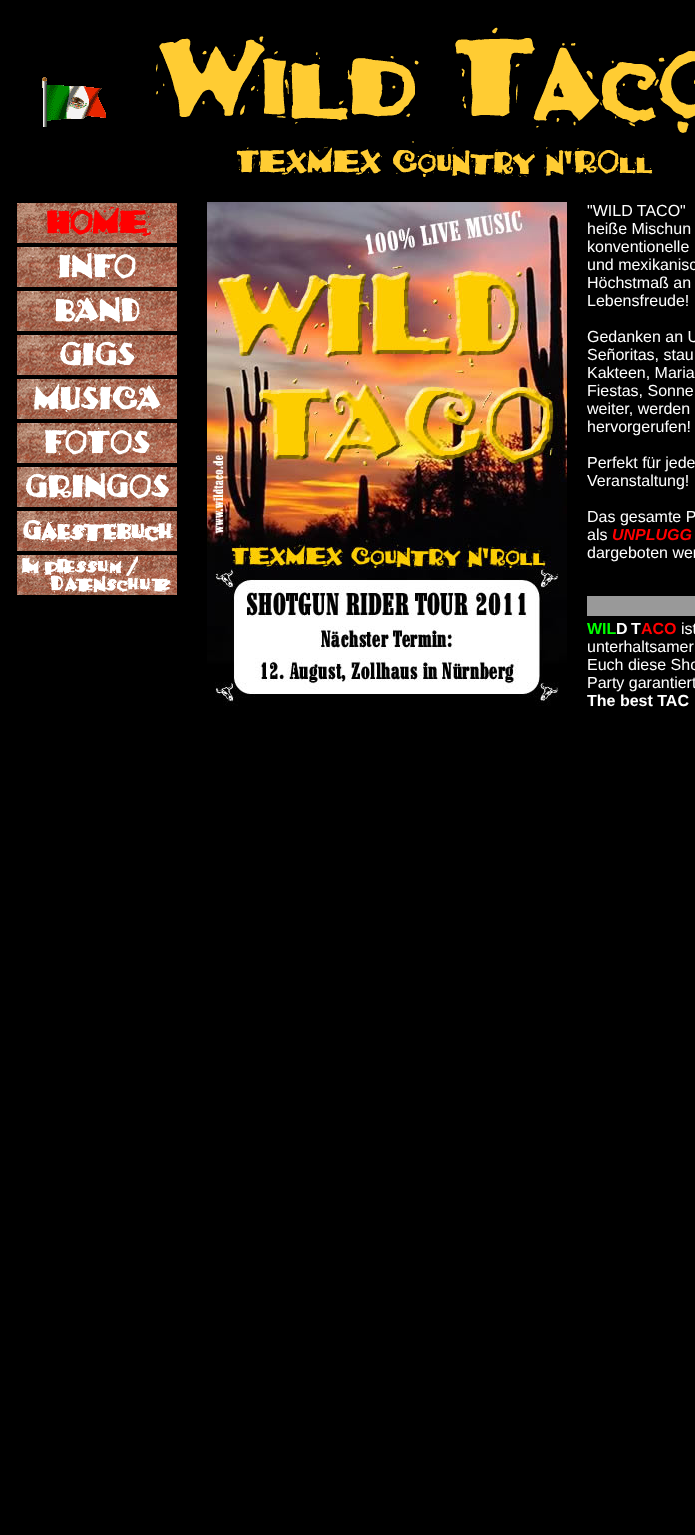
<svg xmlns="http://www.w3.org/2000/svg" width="695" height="1535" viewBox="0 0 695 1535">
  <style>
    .t1 { font: 16px Liberation Sans; fill: #fff; }
    .t2 { font: italic bold 16px Liberation Sans; fill: #f00; }
    .t3 { font: bold 16px Liberation Sans; fill: #0f0; }
    .t4 { font: bold 16px Liberation Sans; fill: #fff; }
    .t5 { font: bold 16px Liberation Sans; fill: #f00; }
  </style>
  <rect width="100%" height="100%" fill="#000"/>
  <image x="42" y="77" width="64" height="50" href="images/1.png"/>
  <image x="156" y="27" width="539" height="150" href="images/2.png"/>
  <image x="17" y="203" width="160" height="40" href="images/3.png"/>
  <image x="17" y="247" width="160" height="40" href="images/4.png"/>
  <image x="17" y="291" width="160" height="40" href="images/5.png"/>
  <image x="17" y="335" width="160" height="40" href="images/6.png"/>
  <image x="17" y="379" width="160" height="40" href="images/7.png"/>
  <image x="17" y="423" width="160" height="40" href="images/8.png"/>
  <image x="17" y="467" width="160" height="40" href="images/9.png"/>
  <image x="17" y="511" width="160" height="40" href="images/10.png"/>
  <image x="17" y="555" width="160" height="40" href="images/11.png"/>
  <image x="207" y="202" width="360" height="504" href="images/12.png"/>
  <text x="587" y="216" class="t1">"WILD TACO"</text>
  <text x="587" y="234" class="t1">heiße Mischun</text>
  <text x="587" y="252" class="t1">konventionelle</text>
  <text x="587" y="270" class="t1">und mexikanisc</text>
  <text x="587" y="288" class="t1">Höchstmaß an</text>
  <text x="587" y="306" class="t1">Lebensfreude!</text>
  <text x="587" y="342" class="t1">Gedanken an U</text>
  <text x="587" y="360" class="t1">Señoritas, stau</text>
  <text x="587" y="378" class="t1">Kakteen, Maria</text>
  <text x="587" y="396" class="t1">Fiestas, Sonne</text>
  <text x="587" y="414" class="t1">weiter, werden</text>
  <text x="587" y="432" class="t1">hervorgerufen!</text>
  <text x="587" y="468" class="t1">Perfekt für jede</text>
  <text x="587" y="486" class="t1">Veranstaltung!</text>
  <text x="587" y="522" class="t1">Das gesamte P</text>
  <text x="587" y="540" class="t1">als</text>
  <text x="612" y="540" class="t2">UNPLUGG</text>
  <text x="587" y="558" class="t1">dargeboten wer</text>
  <rect x="587" y="596" width="108" height="20" fill="#999"/>
  <text x="587" y="634" class="t3">WIL</text>
  <text x="616" y="634" word-spacing="-1" class="t4">D T</text>
  <text x="641" y="634" class="t5">ACO</text>
  <text x="681" y="634" class="t1">ist</text>
  <text x="587" y="652" class="t1">unterhaltsamer</text>
  <text x="587" y="670" class="t1">Euch diese Sho</text>
  <text x="587" y="688" class="t1">Party garantiert</text>
  <text x="587" y="706" class="t4">The best TAC</text>
</svg>
